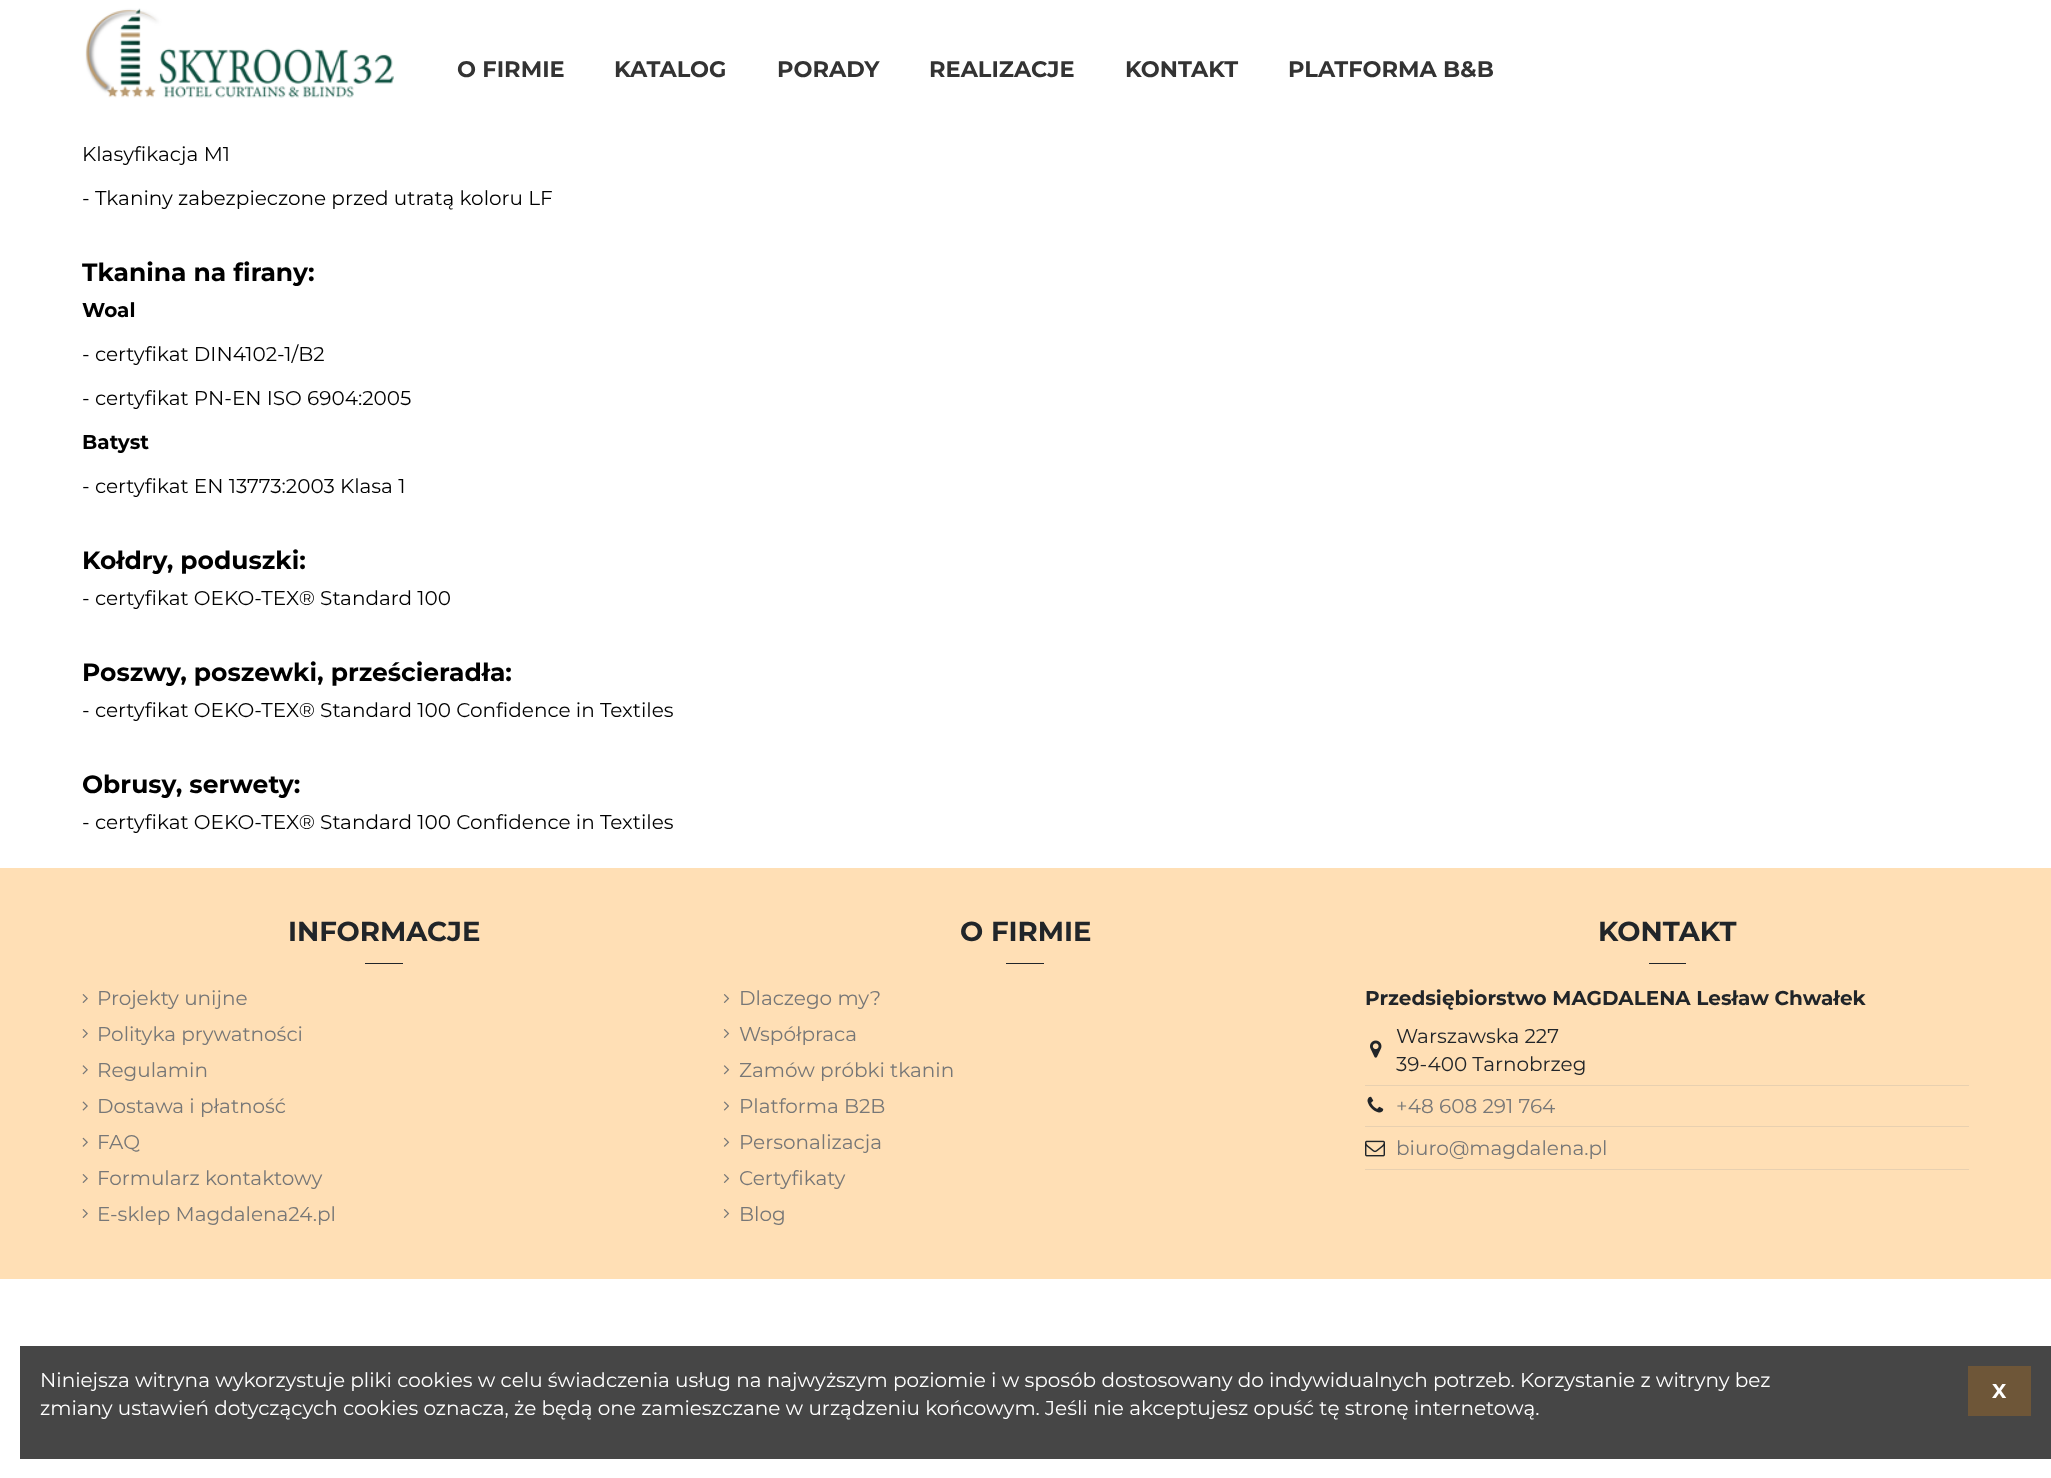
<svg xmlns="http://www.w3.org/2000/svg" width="2051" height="1478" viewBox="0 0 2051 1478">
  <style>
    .t1 { font: bold 22.5px Montserrat; fill: #333; }
    .t2 { font: 20px Montserrat; fill: #000; }
    .t3 { font: bold 25px Montserrat; fill: #000; }
    .t4 { font: bold 20px Montserrat; fill: #000; }
    .t5 { font: bold 27.5px Montserrat; fill: #212529; }
    .t6 { font: 20px Montserrat; fill: #777; }
    .t7 { font: bold 20px Montserrat; fill: #212529; }
    .t8 { font: 20px Montserrat; fill: #212529; }
    .t9 { font: 20px Montserrat; fill: #fff; }
    .t10 { font: bold 20px Montserrat; fill: #fff; }
  </style>
  <rect width="100%" height="100%" fill="#fff"/>
  <image x="85" y="8" width="309" height="90" href="images/1.png"/>
  <text x="457" y="77" class="t1">O FIRMIE</text>
  <text x="614" y="77" class="t1">KATALOG</text>
  <text x="777" y="77" class="t1">PORADY</text>
  <text x="929" y="77" class="t1">REALIZACJE</text>
  <text x="1125" y="77" class="t1">KONTAKT</text>
  <text x="1288" y="77" class="t1">PLATFORMA B&amp;B</text>
  <text x="82" y="161" class="t2">Klasyfikacja M1</text>
  <text x="82" y="205" class="t2">- Tkaniny zabezpieczone przed utratą koloru LF</text>
  <text x="82" y="281" class="t3">Tkanina na firany:</text>
  <text x="82" y="317" class="t4">Woal</text>
  <text x="82" y="361" class="t2">- certyfikat DIN4102-1/B2</text>
  <text x="82" y="405" class="t2">- certyfikat PN-EN ISO 6904:2005</text>
  <text x="82" y="449" class="t4">Batyst</text>
  <text x="82" y="493" class="t2">- certyfikat EN 13773:2003 Klasa 1</text>
  <text x="82" y="569" class="t3">Kołdry, poduszki:</text>
  <text x="82" y="605" class="t2">- certyfikat OEKO-TEX® Standard 100</text>
  <text x="82" y="681" class="t3">Poszwy, poszewki, prześcieradła:</text>
  <text x="82" y="717" class="t2">- certyfikat OEKO-TEX® Standard 100 Confidence in Textiles</text>
  <text x="82" y="793" class="t3">Obrusy, serwety:</text>
  <text x="82" y="829" class="t2">- certyfikat OEKO-TEX® Standard 100 Confidence in Textiles</text>
  <rect x="0" y="868" width="2051" height="411" fill="#ffdfb5"/>
  <text x="288" y="941" class="t5">INFORMACJE</text>
  <rect x="365" y="963" width="38" height="1" fill="#212529"/>
  <image x="82" y="994" width="6" height="9" href="images/2.png"/>
  <text x="97" y="1005" class="t6">Projekty unijne</text>
  <image x="82" y="1029" width="6" height="9" href="images/2.png"/>
  <text x="97" y="1041" class="t6">Polityka prywatności</text>
  <image x="82" y="1065" width="6" height="10" href="images/3.png"/>
  <text x="97" y="1077" class="t6">Regulamin</text>
  <image x="82" y="1101" width="6" height="10" href="images/4.png"/>
  <text x="97" y="1113" class="t6">Dostawa i płatność</text>
  <image x="82" y="1137" width="6" height="10" href="images/5.png"/>
  <text x="97" y="1149" class="t6">FAQ</text>
  <image x="82" y="1174" width="6" height="9" href="images/2.png"/>
  <text x="97" y="1185" class="t6">Formularz kontaktowy</text>
  <image x="82" y="1209" width="6" height="9" href="images/2.png"/>
  <text x="97" y="1221" class="t6">E-sklep Magdalena24.pl</text>
  <text x="960" y="941" class="t5">O FIRMIE</text>
  <rect x="1006" y="963" width="38" height="1" fill="#212529"/>
  <image x="723" y="994" width="7" height="9" href="images/6.png"/>
  <text x="739" y="1005" class="t6">Dlaczego my?</text>
  <image x="723" y="1029" width="7" height="9" href="images/6.png"/>
  <text x="739" y="1041" class="t6">Współpraca</text>
  <image x="723" y="1065" width="7" height="10" href="images/7.png"/>
  <text x="739" y="1077" class="t6">Zamów próbki tkanin</text>
  <image x="723" y="1101" width="6" height="10" href="images/8.png"/>
  <text x="739" y="1113" class="t6">Platforma B2B</text>
  <image x="723" y="1137" width="7" height="10" href="images/9.png"/>
  <text x="739" y="1149" class="t6">Personalizacja</text>
  <image x="723" y="1174" width="7" height="9" href="images/6.png"/>
  <text x="739" y="1185" class="t6">Certyfikaty</text>
  <image x="723" y="1209" width="7" height="9" href="images/6.png"/>
  <text x="739" y="1221" class="t6">Blog</text>
  <text x="1598" y="941" class="t5">KONTAKT</text>
  <rect x="1649" y="963" width="37" height="1" fill="#212529"/>
  <text x="1365" y="1005" class="t7">Przedsiębiorstwo MAGDALENA Lesław Chwałek</text>
  <image x="1370" y="1040" width="12" height="18" href="images/10.png"/>
  <text x="1396" y="1043" class="t8">Warszawska 227</text>
  <text x="1396" y="1071" class="t8">39-400 Tarnobrzeg</text>
  <rect x="1365" y="1085" width="604" height="1" fill="#e8d0b0"/>
  <image x="1367" y="1096" width="17" height="17" href="images/11.png"/>
  <text x="1396" y="1113" class="t6">+48 608 291 764</text>
  <rect x="1365" y="1126" width="604" height="1" fill="#e8d0b0"/>
  <image x="1365" y="1140" width="20" height="17" href="images/12.png"/>
  <text x="1396" y="1155" class="t6">biuro@magdalena.pl</text>
  <rect x="1365" y="1169" width="604" height="1" fill="#e8d0b0"/>
  <rect x="20" y="1346" width="2031" height="113" fill="#464646"/>
  <text x="40" y="1387" class="t9">Niniejsza witryna wykorzystuje pliki cookies w celu świadczenia usług na najwyższym poziomie i w sposób dostosowany do indywidualnych potrzeb. Korzystanie z witryny bez</text>
  <text x="40" y="1415" class="t9">zmiany ustawień dotyczących cookies oznacza, że będą one zamieszczane w urządzeniu końcowym. Jeśli nie akceptujesz opuść tę stronę internetową.</text>
  <rect x="1968" y="1366" width="63" height="50" fill="#6e5638"/>
  <text x="1992" y="1398" class="t10">X</text>
</svg>
